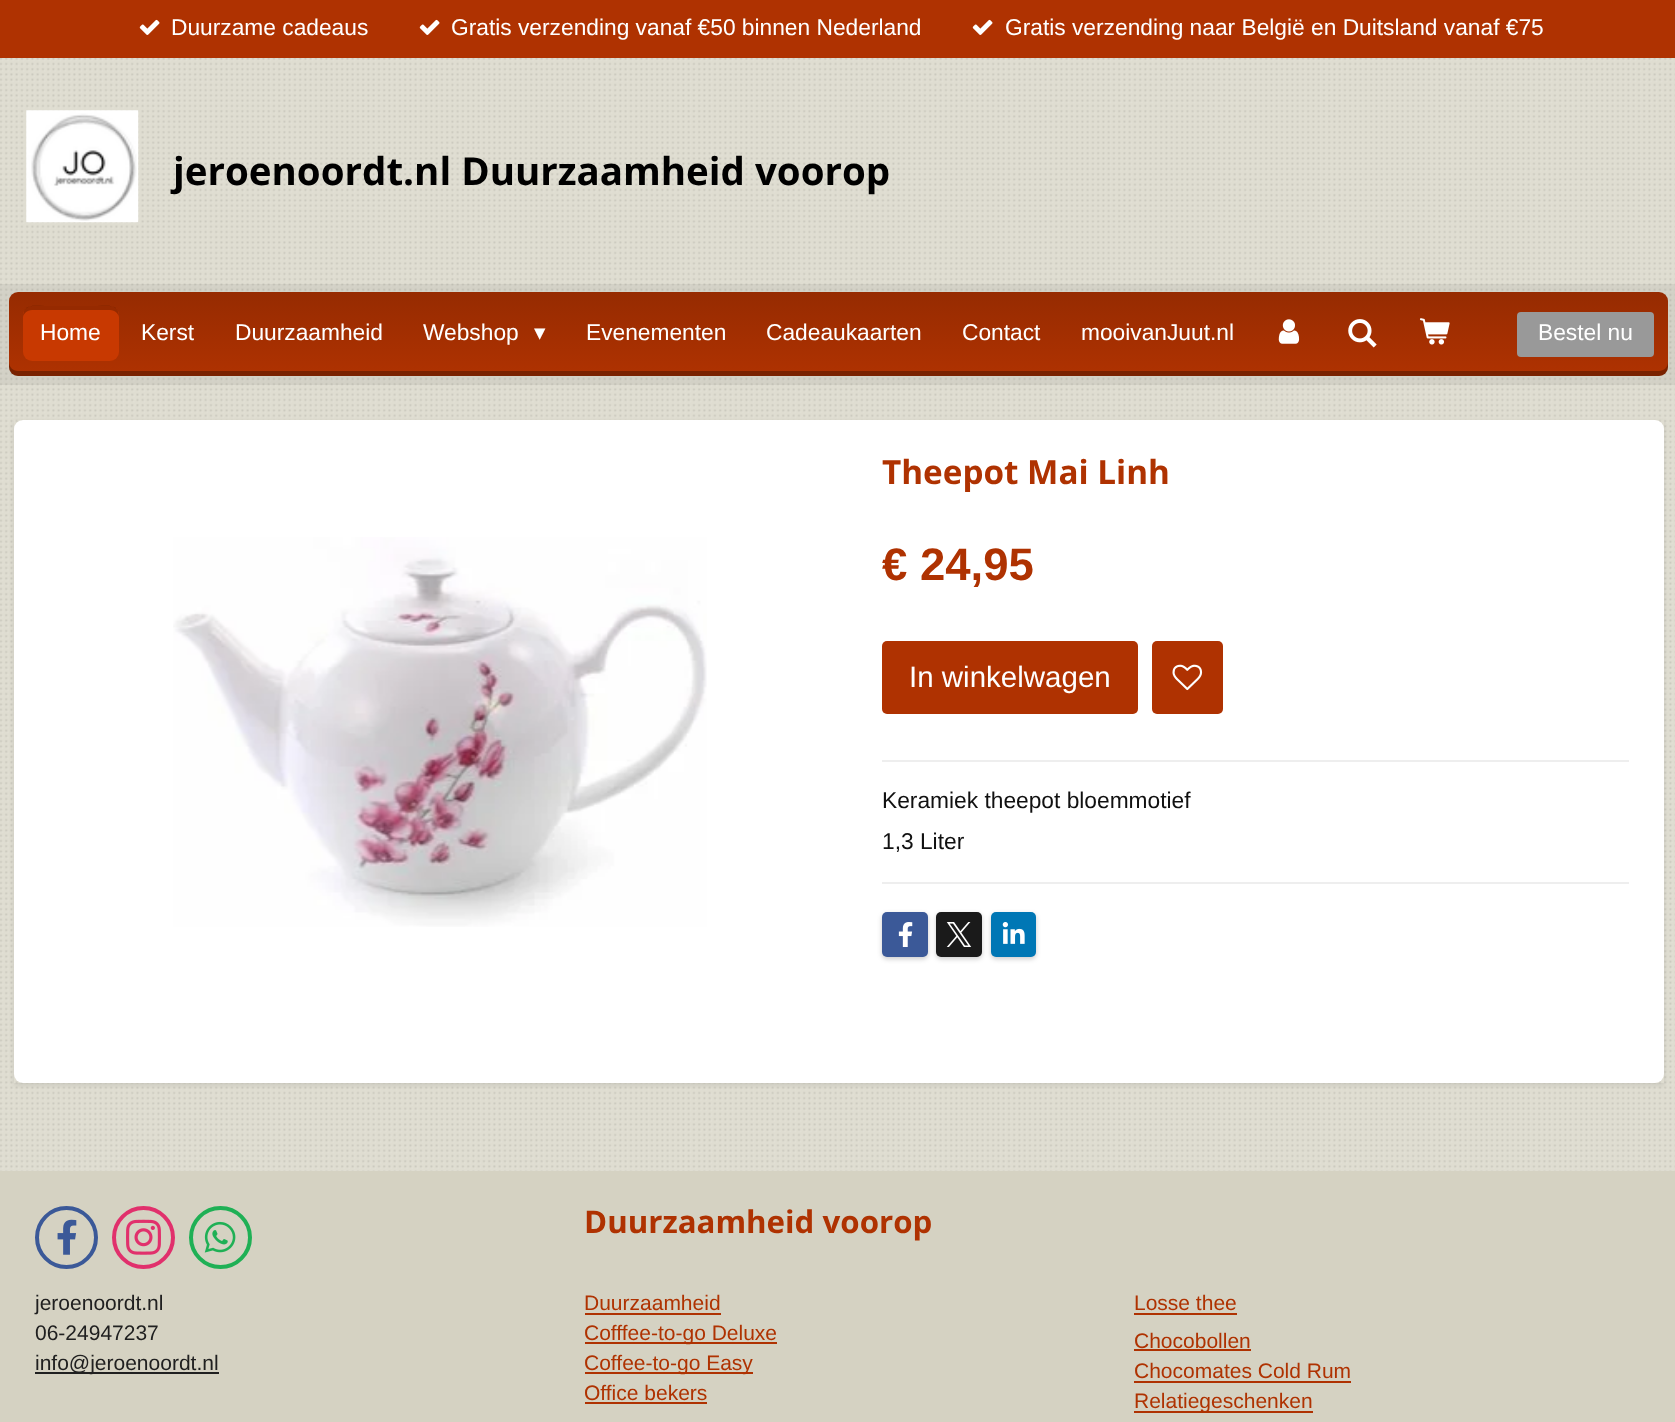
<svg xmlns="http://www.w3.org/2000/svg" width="1675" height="1422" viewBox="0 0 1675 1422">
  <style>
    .t1 { font: 22.75px Liberation Sans; fill: #fff; }
    .t2 { font: bold 38.5px Open Sans; fill: #000; }
    .t3 { font: 22.75px DejaVu Sans; fill: #fff; }
    .t4 { font: bold 33.25px Open Sans; fill: #af3201; }
    .t5 { font: bold 45.5px Liberation Sans; fill: #af3201; }
    .t6 { font: 29.5px Liberation Sans; fill: #fff; }
    .t7 { font: 22.75px Liberation Sans; fill: #111; }
    .t8 { font: bold 31.25px Open Sans; fill: #af3201; }
    .t9 { font: 21px Liberation Sans; fill: #202020; }
    .t10 { font: 21px Liberation Sans; fill: #af3201; }
  </style>
  <defs>
    <linearGradient id="g1" gradientUnits="userSpaceOnUse" x1="838" y1="292" x2="838" y2="376"><stop offset="0" stop-color="#962b01"/><stop offset="1" stop-color="#af3201"/></linearGradient>
    <clipPath id="clip1"><path d="M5 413H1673V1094H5ZM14 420H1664V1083H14Z" clip-rule="evenodd"/></clipPath>
  </defs>
  <rect width="100%" height="100%" fill="#dfddd1"/>
  <rect x="0" y="0" width="1675" height="58" fill="#af3201"/>
  <image x="139" y="19" width="21" height="16" href="images/1.png"/>
  <text x="171" y="35" class="t1">Duurzame cadeaus</text>
  <image x="419" y="19" width="21" height="16" href="images/1.png"/>
  <text x="451" y="35" class="t1">Gratis verzending vanaf €50 binnen Nederland</text>
  <image x="972" y="19" width="21" height="16" href="images/1.png"/>
  <text x="1005" y="35" class="t1">Gratis verzending naar België en Duitsland vanaf €75</text>
  <image x="0" y="58" width="1675" height="1113" href="images/14.png"/>
  <image x="26" y="110" width="113" height="113" href="images/2.png"/>
  <text x="173" y="185" class="t2">jeroenoordt.nl Duurzaamheid voorop</text>
  <rect x="0" y="284" width="1675" height="101" fill="#0000000d"/>
  <rect x="9" y="292" width="1659" height="84" rx="9" fill="url(#g1)"/>
  <path d="M9 362V367C9 372 13 376 18 376H1659C1664 376 1668 372 1668 367V362C1668 367 1664 371 1659 371H18C13 371 9 367 9 362Z" fill="#0000004d"/>
  <rect x="23" y="306" width="96" height="55" rx="9" fill="#c83901"/>
  <path d="M32 310H110C115 310 119 314 119 318C119 303 109 306 97 306H45C33 306 23 303 23 318C23 314 27 310 32 310Z" fill="#00000040"/>
  <text x="40" y="340" class="t1">Home</text>
  <text x="141" y="340" class="t1">Kerst</text>
  <text x="235" y="340" class="t1">Duurzaamheid</text>
  <text x="423" y="340" class="t1">Webshop</text>
  <text x="534" y="340" class="t3">▾</text>
  <text x="586" y="340" class="t1">Evenementen</text>
  <text x="766" y="340" class="t1">Cadeaukaarten</text>
  <text x="962" y="340" class="t1">Contact</text>
  <text x="1081" y="340" class="t1">mooivanJuut.nl</text>
  <image x="1278" y="319" width="22" height="25" href="images/3.png"/>
  <image x="1348" y="319" width="29" height="29" href="images/4.png"/>
  <image x="1419" y="318" width="31" height="27" href="images/5.png"/>
  <rect x="1517" y="312" width="137" height="45" rx="4" fill="#999"/>
  <text x="1538" y="340" class="t1">Bestel nu</text>
  <g clip-path="url(#clip1)">
    <rect x="14" y="422" width="1650" height="663" fill="#0000001a" filter="blur(2.5px)"/>
  </g>
  <rect x="14" y="420" width="1650" height="663" rx="9" fill="#fff"/>
  <text x="882" y="484" class="t4">Theepot Mai Linh</text>
  <image x="173" y="537" width="534" height="390" href="images/6.png"/>
  <text x="882" y="580" class="t5">€ 24,95</text>
  <rect x="882" y="641" width="256" height="73" rx="5" fill="#af3201"/>
  <text x="909" y="687" class="t6">In winkelwagen</text>
  <rect x="1152" y="641" width="71" height="73" rx="5" fill="#af3201"/>
  <image x="1172" y="664" width="31" height="27" href="images/7.png"/>
  <rect x="882" y="760" width="747" height="2" fill="#eee"/>
  <text x="882" y="808" class="t7">Keramiek theepot bloemmotief</text>
  <text x="882" y="849" class="t7">1,3 Liter</text>
  <rect x="882" y="882" width="747" height="2" fill="#eee"/>
  <rect x="882" y="914" width="46" height="45" rx="5" fill="#00000033" filter="blur(2.5px)"/>
  <rect x="882" y="912" width="46" height="45" rx="5" fill="#3b5998"/>
  <image x="898" y="922" width="15" height="25" href="images/8.png"/>
  <rect x="936" y="914" width="46" height="45" rx="5" fill="#00000033" filter="blur(2.5px)"/>
  <rect x="936" y="912" width="46" height="45" rx="5" fill="#1a1a1a"/>
  <image x="946" y="922" width="26" height="25" href="images/9.png"/>
  <rect x="991" y="914" width="45" height="45" rx="5" fill="#00000033" filter="blur(2.5px)"/>
  <rect x="991" y="912" width="45" height="45" rx="5" fill="#0077b5"/>
  <image x="1002" y="922" width="23" height="22" href="images/10.png"/>
  <rect x="0" y="1171" width="1675" height="251" fill="#d5d2c2"/>
  <circle cx="66.5" cy="1237.5" r="29.5" fill="none" stroke="#3b5998" stroke-width="4"/>
  <image x="57" y="1219" width="20" height="36" href="images/11.png"/>
  <circle cx="143.5" cy="1237.5" r="29.5" fill="none" stroke="#e1306c" stroke-width="4"/>
  <image x="126" y="1219" width="35" height="36" href="images/12.png"/>
  <circle cx="220.5" cy="1237.5" r="29.5" fill="none" stroke="#1fb055" stroke-width="4"/>
  <image x="204" y="1221" width="32" height="32" href="images/13.png"/>
  <text x="584" y="1233" class="t8">Duurzaamheid voorop</text>
  <text x="35" y="1310" class="t9">jeroenoordt.nl</text>
  <text x="35" y="1340" class="t9">06-24947237</text>
  <rect x="35" y="1372" width="184" height="2" fill="#202020"/>
  <text x="35" y="1370" class="t9">info@jeroenoordt.nl</text>
  <text x="584" y="1310" class="t10">Duurzaamheid</text>
  <rect x="585" y="1313" width="136" height="2" fill="#af3201"/>
  <rect x="585" y="1342" width="192" height="2" fill="#af3201"/>
  <text x="584" y="1340" class="t10">Cofffee-to-go Deluxe</text>
  <rect x="585" y="1372" width="168" height="2" fill="#af3201"/>
  <text x="584" y="1370" class="t10">Coffee-to-go Easy</text>
  <text x="584" y="1400" class="t10">Office bekers</text>
  <rect x="585" y="1402" width="122" height="2" fill="#af3201"/>
  <text x="1134" y="1310" class="t10">Losse thee</text>
  <rect x="1134" y="1313" width="103" height="2" fill="#af3201"/>
  <text x="1134" y="1348" class="t10">Chocobollen</text>
  <rect x="1134" y="1349" width="117" height="2" fill="#af3201"/>
  <text x="1134" y="1378" class="t10">Chocomates Cold Rum</text>
  <rect x="1134" y="1381" width="217" height="2" fill="#af3201"/>
  <rect x="1134" y="1411" width="179" height="2" fill="#af3201"/>
  <text x="1134" y="1408" class="t10">Relatiegeschenken</text>
</svg>
